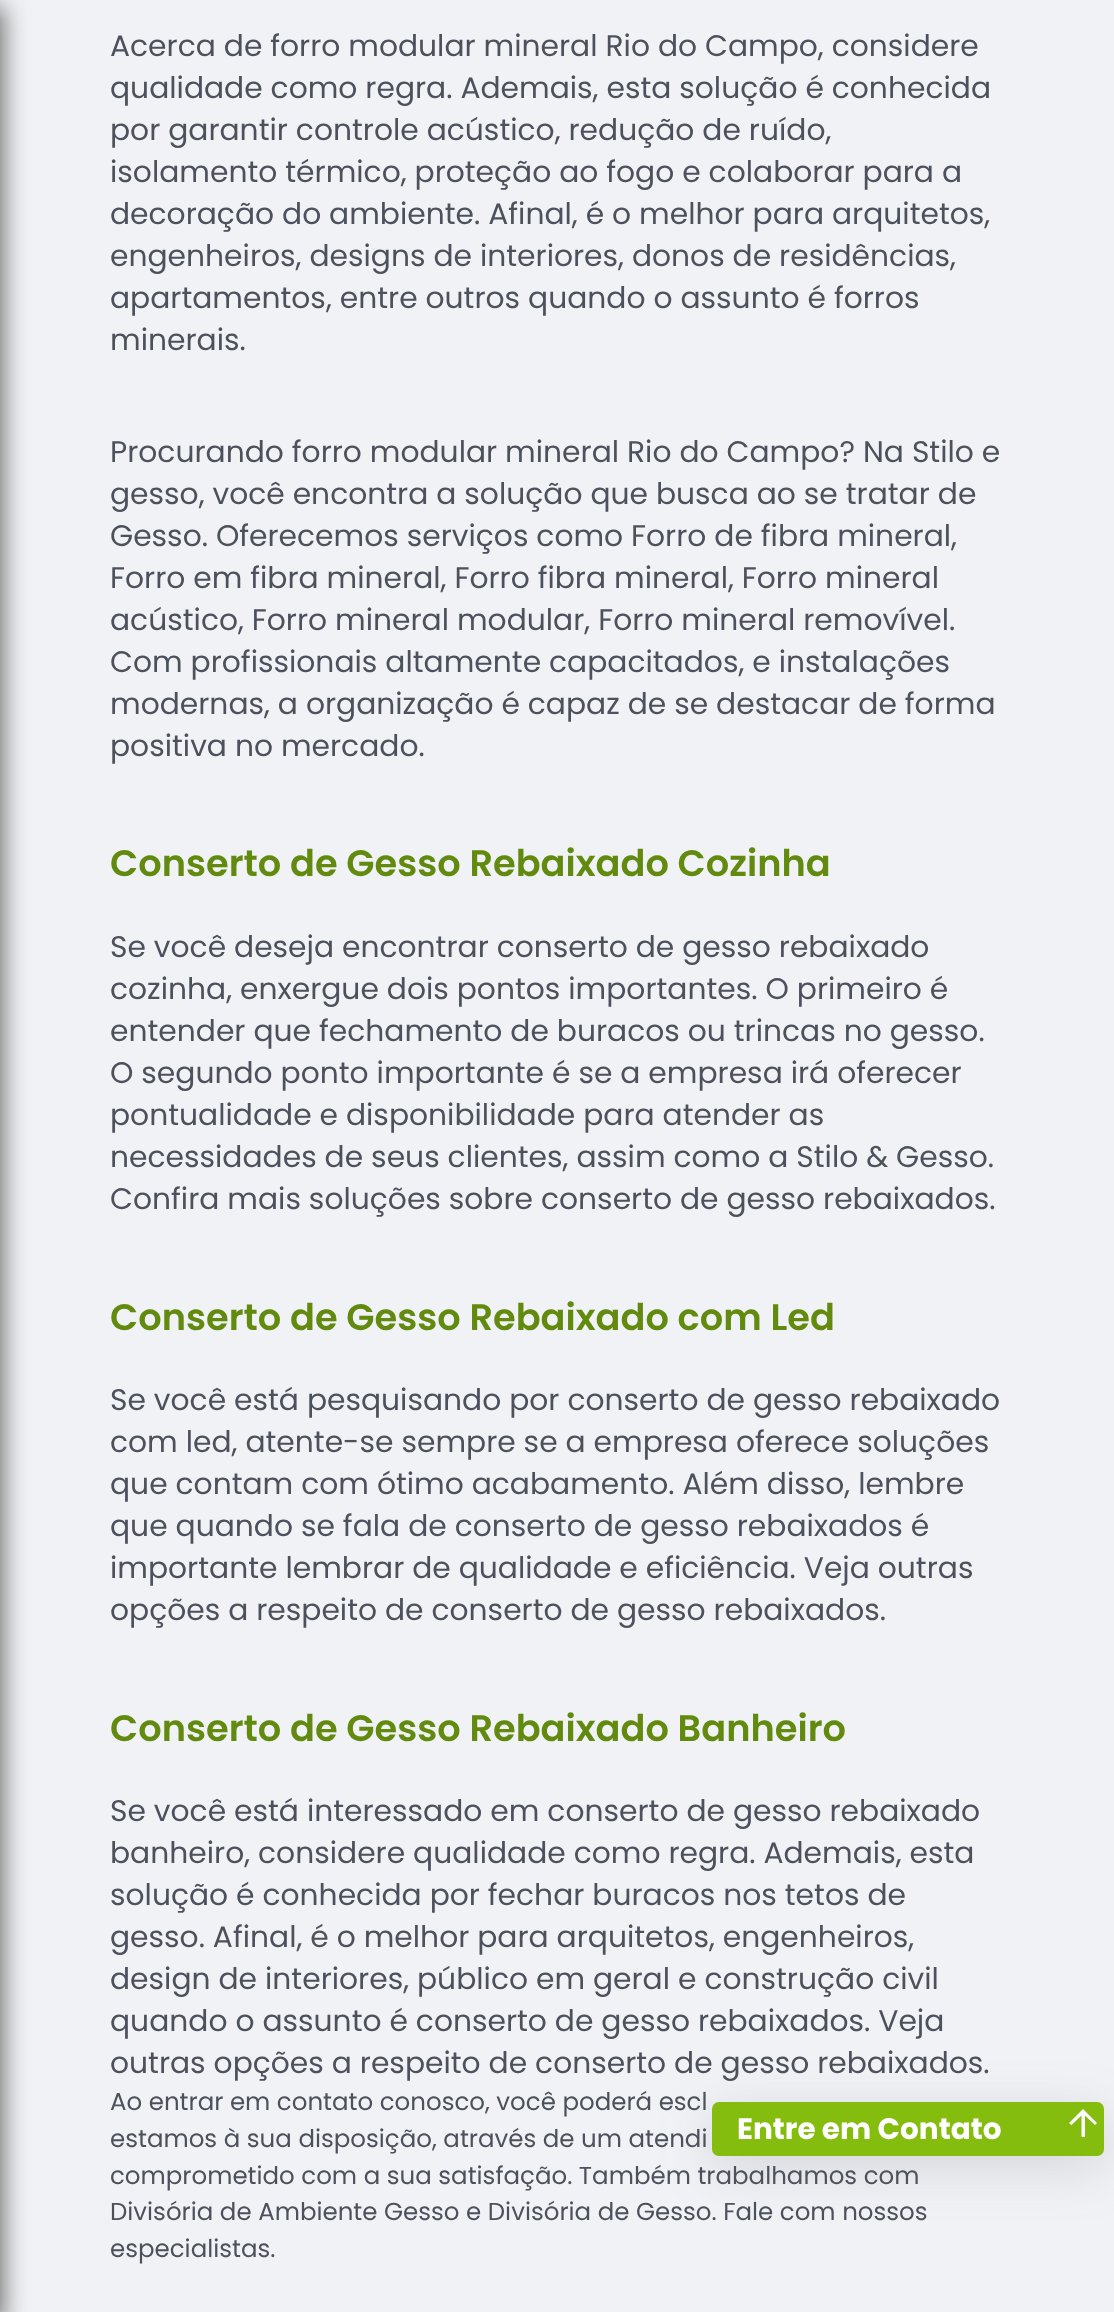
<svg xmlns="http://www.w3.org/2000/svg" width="1114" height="2312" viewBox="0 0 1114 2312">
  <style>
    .t1 { font: 29.75px Poppins; fill: #4d515c; }
    .t2 { font: 600 36.75px Poppins; fill: #628a0e; }
    .t3 { font: 24.5px Poppins; fill: #4d515c; }
    .t4 { font: bold 29.5px Poppins; fill: #fff; }
  </style>
  <rect width="100%" height="100%" fill="#f0f2f5"/>
  <rect x="-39" y="7" width="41" height="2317" fill="#00000099" filter="blur(13px)"/>
  <text x="110" y="56" class="t1">Acerca de forro modular mineral Rio do Campo, considere</text>
  <text x="110" y="98" class="t1">qualidade como regra. Ademais, esta solução é conhecida</text>
  <text x="110" y="140" class="t1">por garantir controle acústico, redução de ruído,</text>
  <text x="110" y="182" class="t1">isolamento térmico, proteção ao fogo e colaborar para a</text>
  <text x="110" y="224" class="t1">decoração do ambiente. Afinal, é o melhor para arquitetos,</text>
  <text x="110" y="266" class="t1">engenheiros, designs de interiores, donos de residências,</text>
  <text x="110" y="308" class="t1">apartamentos, entre outros quando o assunto é forros</text>
  <text x="110" y="350" class="t1">minerais.</text>
  <text x="110" y="462" class="t1">Procurando forro modular mineral Rio do Campo? Na Stilo e</text>
  <text x="110" y="504" class="t1">gesso, você encontra a solução que busca ao se tratar de</text>
  <text x="110" y="546" class="t1">Gesso. Oferecemos serviços como Forro de fibra mineral,</text>
  <text x="110" y="588" class="t1">Forro em fibra mineral, Forro fibra mineral, Forro mineral</text>
  <text x="110" y="630" class="t1">acústico, Forro mineral modular, Forro mineral removível.</text>
  <text x="110" y="672" class="t1">Com profissionais altamente capacitados, e instalações</text>
  <text x="110" y="714" class="t1">modernas, a organização é capaz de se destacar de forma</text>
  <text x="110" y="756" class="t1">positiva no mercado.</text>
  <text x="110" y="876" class="t2">Conserto de Gesso Rebaixado Cozinha</text>
  <text x="110" y="957" class="t1">Se você deseja encontrar conserto de gesso rebaixado</text>
  <text x="110" y="999" class="t1">cozinha, enxergue dois pontos importantes. O primeiro é</text>
  <text x="110" y="1041" class="t1">entender que fechamento de buracos ou trincas no gesso.</text>
  <text x="110" y="1083" class="t1">O segundo ponto importante é se a empresa irá oferecer</text>
  <text x="110" y="1125" class="t1">pontualidade e disponibilidade para atender as</text>
  <text x="110" y="1167" class="t1">necessidades de seus clientes, assim como a Stilo &amp; Gesso.</text>
  <text x="110" y="1209" class="t1">Confira mais soluções sobre conserto de gesso rebaixados.</text>
  <text x="110" y="1330" class="t2">Conserto de Gesso Rebaixado com Led</text>
  <text x="110" y="1410" class="t1">Se você está pesquisando por conserto de gesso rebaixado</text>
  <text x="110" y="1452" class="t1">com led, atente-se sempre se a empresa oferece soluções</text>
  <text x="110" y="1494" class="t1">que contam com ótimo acabamento. Além disso, lembre</text>
  <text x="110" y="1536" class="t1">que quando se fala de conserto de gesso rebaixados é</text>
  <text x="110" y="1578" class="t1">importante lembrar de qualidade e eficiência. Veja outras</text>
  <text x="110" y="1620" class="t1">opções a respeito de conserto de gesso rebaixados.</text>
  <text x="110" y="1741" class="t2">Conserto de Gesso Rebaixado Banheiro</text>
  <text x="110" y="1821" class="t1">Se você está interessado em conserto de gesso rebaixado</text>
  <text x="110" y="1863" class="t1">banheiro, considere qualidade como regra. Ademais, esta</text>
  <text x="110" y="1905" class="t1">solução é conhecida por fechar buracos nos tetos de</text>
  <text x="110" y="1947" class="t1">gesso. Afinal, é o melhor para arquitetos, engenheiros,</text>
  <text x="110" y="1989" class="t1">design de interiores, público em geral e construção civil</text>
  <text x="110" y="2031" class="t1">quando o assunto é conserto de gesso rebaixados. Veja</text>
  <text x="110" y="2073" class="t1">outras opções a respeito de conserto de gesso rebaixados.</text>
  <text x="110" y="2110" class="t3">Ao entrar em contato conosco, você poderá escl</text>
  <text x="110" y="2147" class="t3">estamos à sua disposição, através de um atendi</text>
  <text x="110" y="2184" class="t3">comprometido com a sua satisfação. Também trabalhamos com</text>
  <text x="110" y="2220" class="t3">Divisória de Ambiente Gesso e Divisória de Gesso. Fale com nossos</text>
  <text x="110" y="2257" class="t3">especialistas.</text>
  <rect x="712" y="2114" width="392" height="54" rx="7" fill="#64646f33" filter="blur(25.5px)"/>
  <rect x="712" y="2102" width="392" height="54" rx="7" fill="#85bd0f"/>
  <text x="737" y="2139" class="t4">Entre em Contato</text>
  <path d="M1069 2123L1071.5 2125L1081.5 2115.5V2137H1085V2115.5L1095 2125L1097 2123L1083 2109Z" fill="#fff"/>
</svg>
